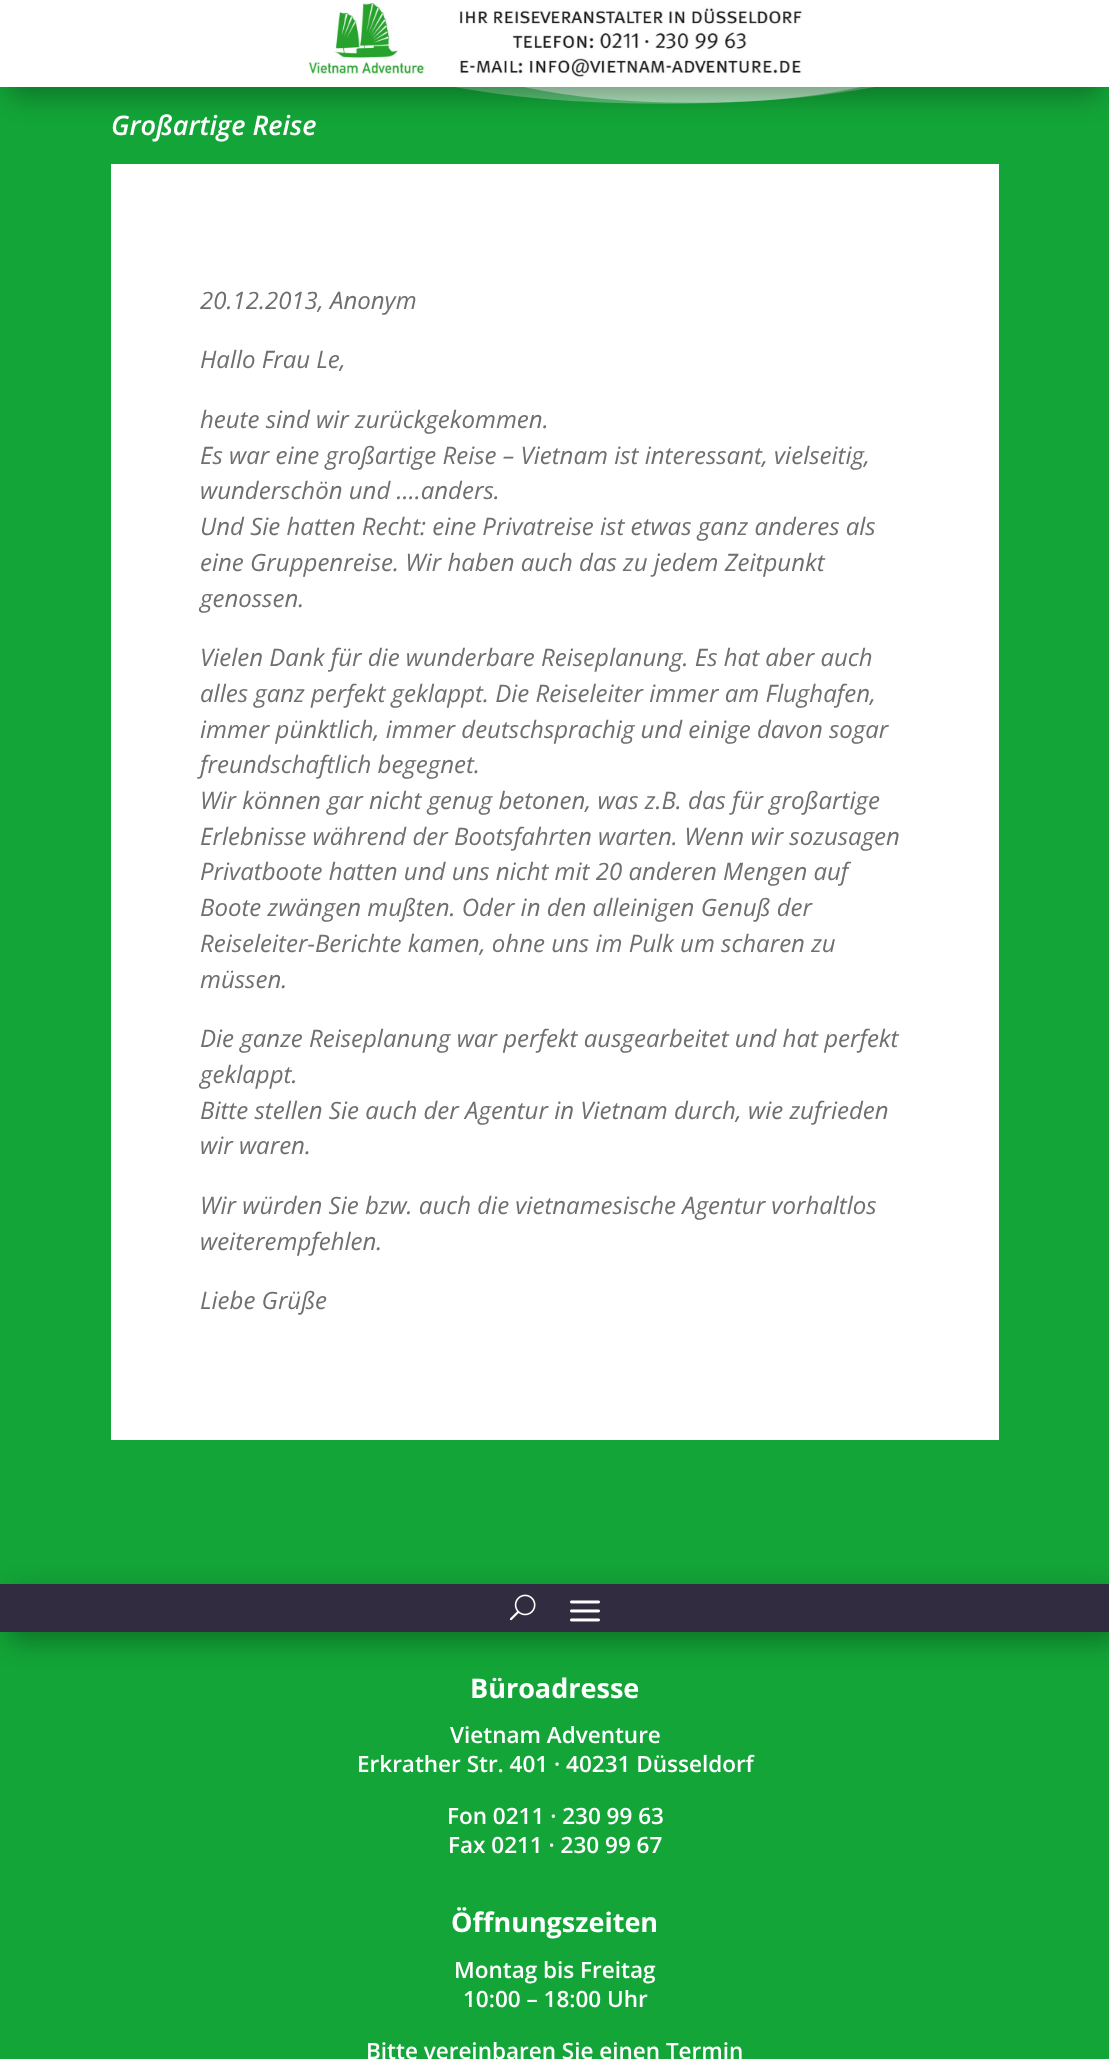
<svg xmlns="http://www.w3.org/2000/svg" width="1109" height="2059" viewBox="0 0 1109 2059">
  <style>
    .t1 { font: italic 600 27px Open Sans; fill: #fff; }
    .t2 { font: italic 24px Open Sans; fill: #706f6f; }
    .t3 { font: bold 27px Open Sans; fill: #fff; }
    .t4 { font: 600 22.5px Open Sans; fill: #fff; }
  </style>
  <rect width="100%" height="100%" fill="#13a538"/>
  <image x="455" y="87" width="420" height="17" href="images/2.png"/>
  <rect x="9" y="27" width="1092" height="69" fill="#0000004d" filter="blur(13.5px)"/>
  <rect x="0" y="0" width="1109" height="87" fill="#fff"/>
  <image x="308" y="3" width="495" height="74" href="images/1.png"/>
  <text x="111" y="135" class="t1">Großartige Reise</text>
  <rect x="111" y="164" width="888" height="1276" fill="#fff"/>
  <text x="200" y="309" class="t2">20.12.2013, Anonym</text>
  <text x="200" y="368" class="t2">Hallo Frau Le,</text>
  <text x="200" y="428" class="t2">heute sind wir zurückgekommen.</text>
  <text x="200" y="464" class="t2">Es war eine großartige Reise – Vietnam ist interessant, vielseitig,</text>
  <text x="200" y="499" class="t2">wunderschön und ….anders.</text>
  <text x="200" y="535" class="t2">Und Sie hatten Recht: eine Privatreise ist etwas ganz anderes als</text>
  <text x="200" y="571" class="t2">eine Gruppenreise. Wir haben auch das zu jedem Zeitpunkt</text>
  <text x="200" y="607" class="t2">genossen.</text>
  <text x="200" y="666" class="t2">Vielen Dank für die wunderbare Reiseplanung. Es hat aber auch</text>
  <text x="200" y="702" class="t2">alles ganz perfekt geklappt. Die Reiseleiter immer am Flughafen,</text>
  <text x="200" y="738" class="t2">immer pünktlich, immer deutschsprachig und einige davon sogar</text>
  <text x="200" y="773" class="t2">freundschaftlich begegnet.</text>
  <text x="200" y="809" class="t2">Wir können gar nicht genug betonen, was z.B. das für großartige</text>
  <text x="200" y="845" class="t2">Erlebnisse während der Bootsfahrten warten. Wenn wir sozusagen</text>
  <text x="200" y="880" class="t2">Privatboote hatten und uns nicht mit 20 anderen Mengen auf</text>
  <text x="200" y="916" class="t2">Boote zwängen mußten. Oder in den alleinigen Genuß der</text>
  <text x="200" y="952" class="t2">Reiseleiter-Berichte kamen, ohne uns im Pulk um scharen zu</text>
  <text x="200" y="988" class="t2">müssen.</text>
  <text x="200" y="1047" class="t2">Die ganze Reiseplanung war perfekt ausgearbeitet und hat perfekt</text>
  <text x="200" y="1083" class="t2">geklappt.</text>
  <text x="200" y="1119" class="t2">Bitte stellen Sie auch der Agentur in Vietnam durch, wie zufrieden</text>
  <text x="200" y="1154" class="t2">wir waren.</text>
  <text x="200" y="1214" class="t2">Wir würden Sie bzw. auch die vietnamesische Agentur vorhaltlos</text>
  <text x="200" y="1250" class="t2">weiterempfehlen.</text>
  <text x="200" y="1309" class="t2">Liebe Grüße</text>
  <rect x="9" y="1593" width="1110" height="48" fill="#0000004d" filter="blur(13.5px)"/>
  <rect x="0" y="1584" width="1109" height="48" fill="#322c41"/>
  <image x="509" y="1594" width="27" height="27" href="images/3.png"/>
  <image x="570" y="1600" width="30" height="22" href="images/4.png"/>
  <text x="470" y="1698" class="t3">Büroadresse</text>
  <text x="450" y="1743" class="t4">Vietnam Adventure</text>
  <text x="357" y="1772" class="t4">Erkrather Str. 401 · 40231 Düsseldorf</text>
  <text x="447" y="1824" class="t4">Fon 0211 · 230 99 63</text>
  <text x="448" y="1853" class="t4">Fax 0211 · 230 99 67</text>
  <text x="451" y="1932" class="t3">Öffnungszeiten</text>
  <text x="454" y="1978" class="t4">Montag bis Freitag</text>
  <text x="463" y="2007" class="t4">10:00 – 18:00 Uhr</text>
  <text x="366" y="2059" class="t4">Bitte vereinbaren Sie einen Termin</text>
</svg>
